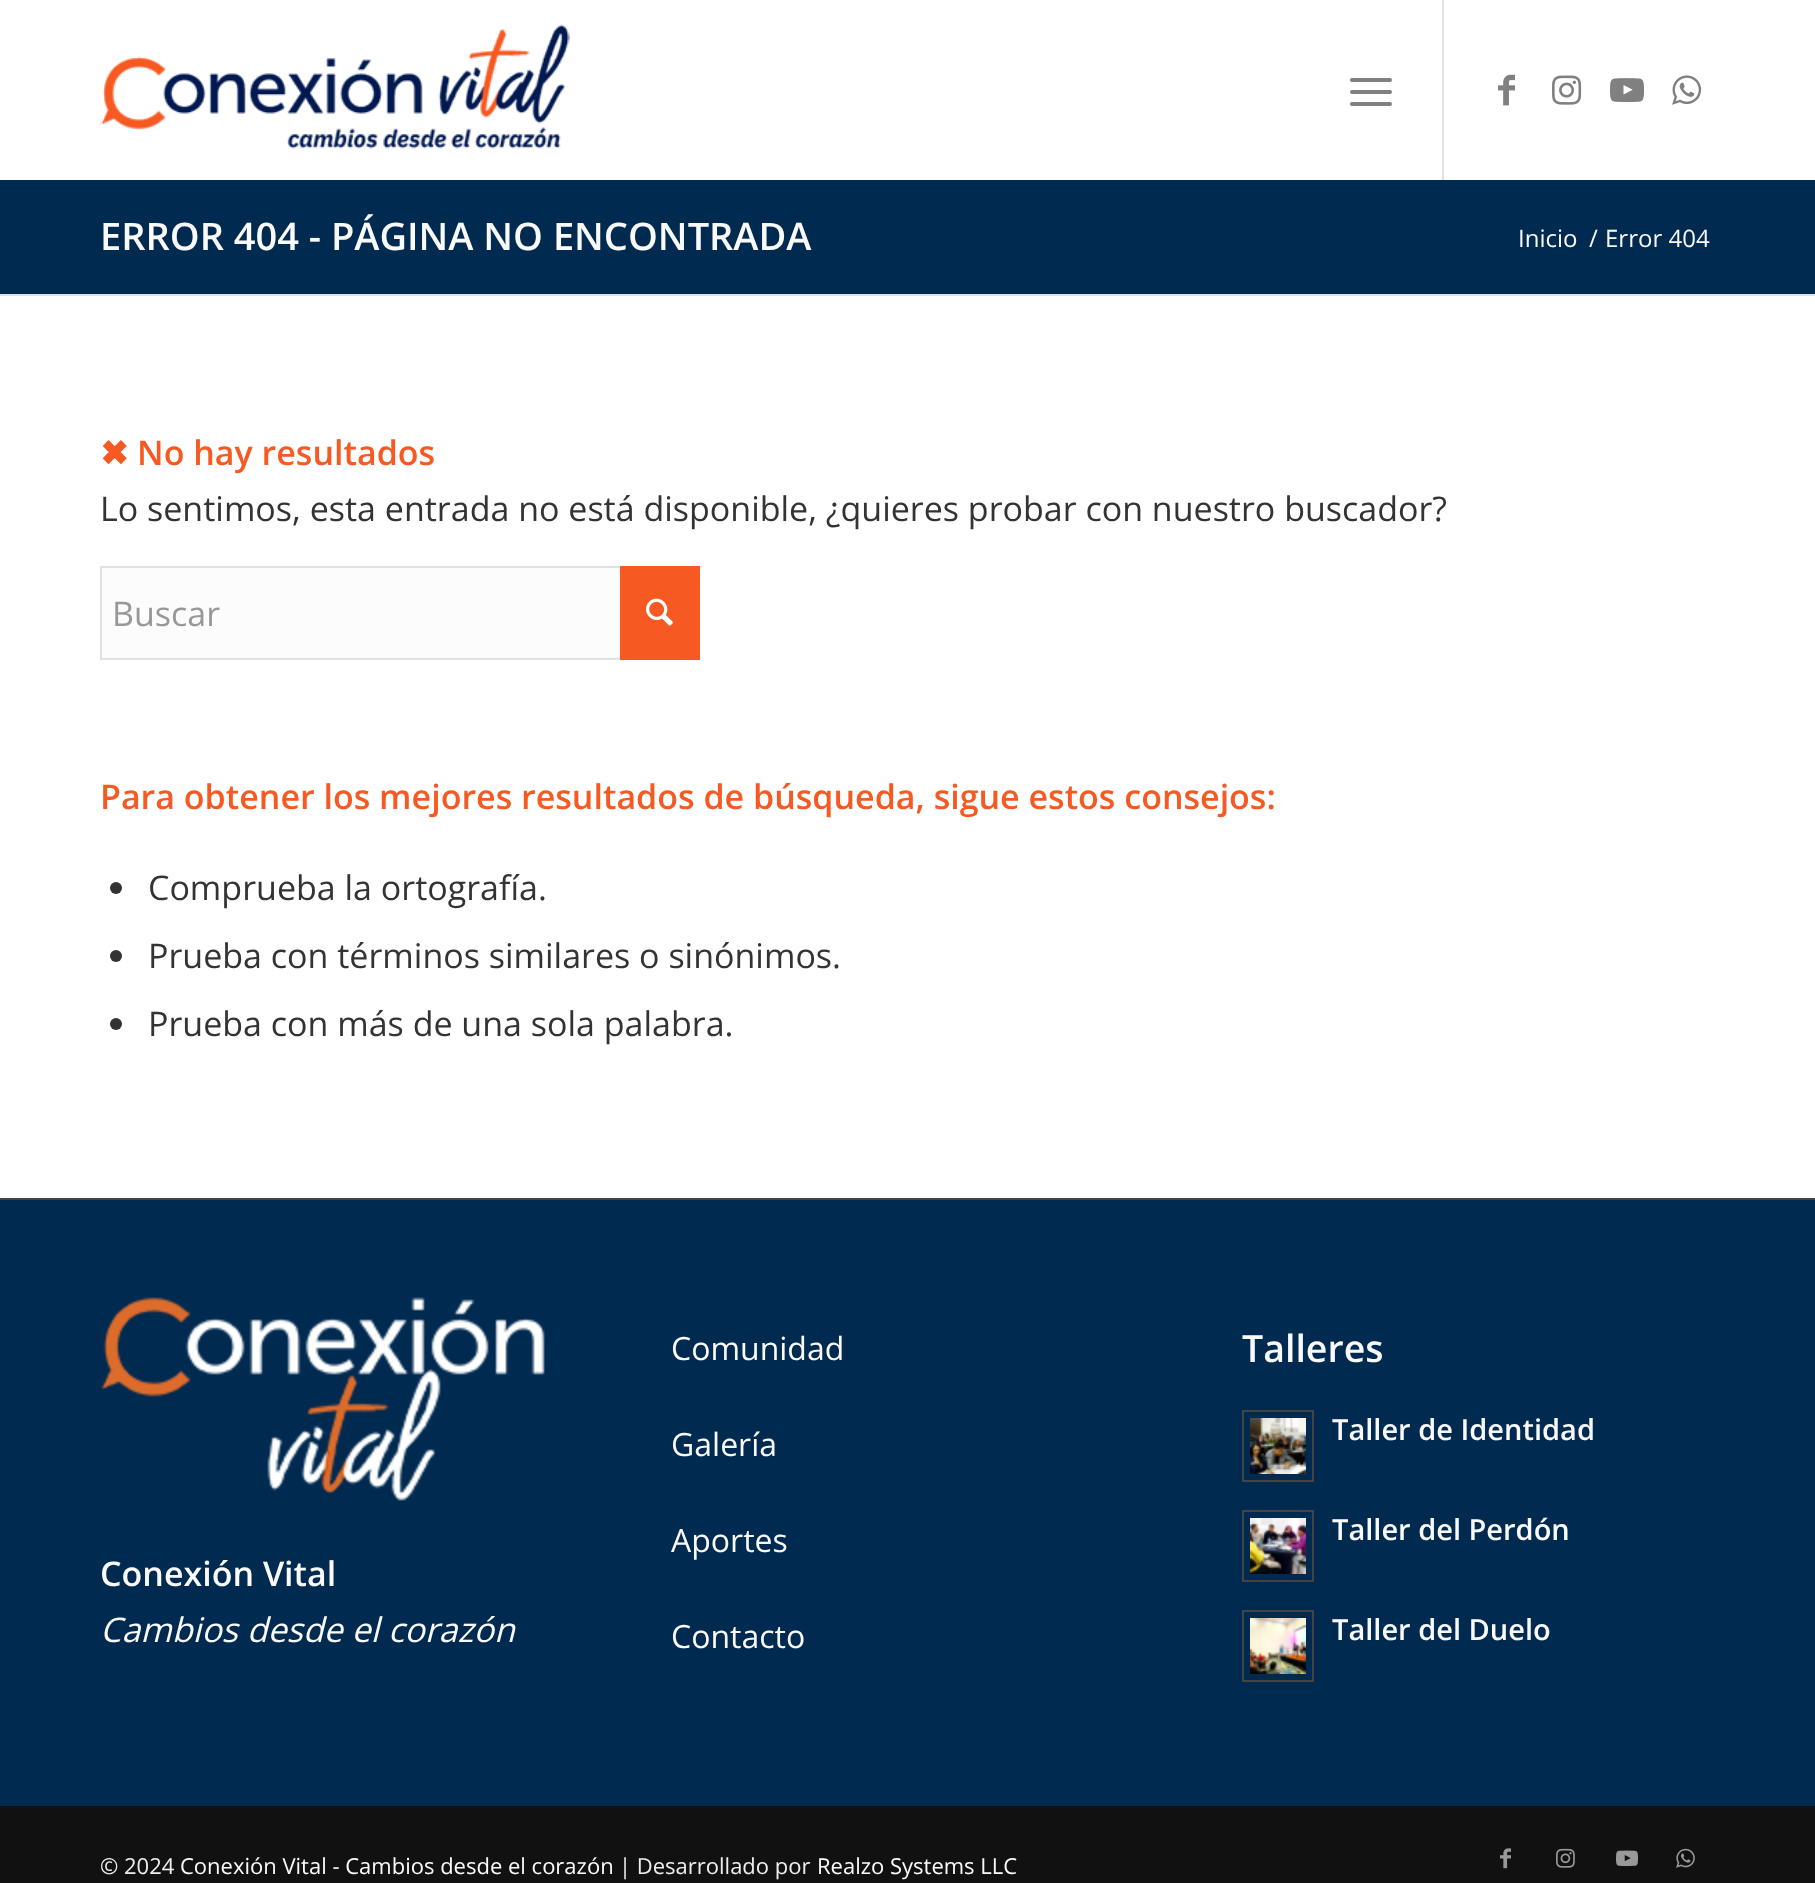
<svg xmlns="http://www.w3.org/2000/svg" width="1815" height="1883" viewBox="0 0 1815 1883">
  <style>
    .t1 { font: 600 38px Open Sans; fill: #fafafa; }
    .t2 { font: 24px Open Sans; fill: #fafafa; }
    .t3 { font: bold 34px DejaVu Sans; fill: #f65a22; }
    .t4 { font: 600 34px Open Sans; fill: #f65a22; }
    .t5 { font: 34px Open Sans; fill: #333; }
    .t6 { font: 34px Open Sans; fill: #989898; }
    .t7 { font: 600 34px Open Sans; fill: #fafafa; }
    .t8 { font: italic 34px Open Sans; fill: #fafafa; }
    .t9 { font: 32px Open Sans; fill: #fafafa; }
    .t10 { font: 600 37.5px Open Sans; fill: #fafafa; }
    .t11 { font: 600 29px Open Sans; fill: #fafafa; }
    .t12 { font: 22px Open Sans; fill: #eee; }
    .t13 { font: 22px Open Sans; fill: #fafafa; }
  </style>
  <rect width="100%" height="100%" fill="#fff"/>
  <image x="100" y="24" width="470" height="125" href="images/1.png"/>
  <rect x="1442" y="0" width="2" height="180" fill="#e1e1e1"/>
  <rect x="1350" y="90" width="42" height="4" rx="2" fill="#808080"/>
  <rect x="1350" y="78" width="42" height="4" rx="2" fill="#808080"/>
  <rect x="1350" y="102" width="42" height="4" rx="2" fill="#808080"/>
  <image x="1498" y="74" width="17" height="32" href="images/2.png"/>
  <image x="1552" y="75" width="30" height="30" href="images/3.png"/>
  <image x="1610" y="78" width="34" height="25" href="images/4.png"/>
  <image x="1672" y="75" width="30" height="30" href="images/5.png"/>
  <rect x="0" y="180" width="1815" height="114" fill="#012a51"/>
  <text x="100" y="250" class="t1">ERROR 404 - PÁGINA NO ENCONTRADA</text>
  <text x="1518" y="247" class="t2">Inicio</text>
  <text x="1589" y="247" class="t2">/</text>
  <text x="1605" y="247" class="t2">Error 404</text>
  <rect x="0" y="294" width="1815" height="2" fill="#e1e1e1"/>
  <text x="100" y="465" class="t3">✖</text>
  <text x="137" y="465" class="t4">No hay resultados</text>
  <text x="100" y="521" class="t5">Lo sentimos, esta entrada no está disponible, ¿quieres probar con nuestro buscador?</text>
  <rect x="102" y="568" width="518" height="90" fill="#fcfcfc"/>
  <rect x="101" y="567" width="598" height="92" fill="none" stroke="#e1e1e1" stroke-width="2"/>
  <text x="112" y="626" class="t6">Buscar</text>
  <rect x="620" y="566" width="80" height="94" fill="#f65a22"/>
  <image x="646" y="598" width="27" height="28" href="images/6.png"/>
  <text x="100" y="809" class="t4">Para obtener los mejores resultados de búsqueda, sigue estos consejos:</text>
  <circle cx="116" cy="888" r="6" fill="#333"/>
  <text x="148" y="900" class="t5">Comprueba la ortografía.</text>
  <circle cx="116" cy="956" r="6" fill="#333"/>
  <text x="148" y="968" class="t5">Prueba con términos similares o sinónimos.</text>
  <circle cx="116" cy="1024" r="6" fill="#333"/>
  <text x="148" y="1036" class="t5">Prueba con más de una sola palabra.</text>
  <rect x="0" y="1200" width="1815" height="606" fill="#012a51"/>
  <rect x="0" y="1198" width="1815" height="2" fill="#444"/>
  <image x="101" y="1297" width="444" height="204" href="images/7.png"/>
  <text x="100" y="1586" class="t7">Conexión Vital</text>
  <text x="100" y="1642" class="t8">Cambios desde el corazón</text>
  <text x="671" y="1360" class="t9">Comunidad</text>
  <text x="671" y="1456" class="t9">Galería</text>
  <text x="671" y="1552" class="t9">Aportes</text>
  <text x="671" y="1648" class="t9">Contacto</text>
  <text x="1242" y="1362" class="t10">Talleres</text>
  <rect x="1243" y="1411" width="70" height="70" fill="none" stroke="#444" stroke-width="2"/>
  <image x="1250" y="1418" width="56" height="56" href="images/8.png"/>
  <text x="1332" y="1440" class="t11">Taller de Identidad</text>
  <rect x="1243" y="1511" width="70" height="70" fill="none" stroke="#444" stroke-width="2"/>
  <image x="1250" y="1518" width="56" height="56" href="images/9.png"/>
  <text x="1332" y="1540" class="t11">Taller del Perdón</text>
  <rect x="1243" y="1611" width="70" height="70" fill="none" stroke="#444" stroke-width="2"/>
  <image x="1250" y="1618" width="56" height="56" href="images/10.png"/>
  <text x="1332" y="1640" class="t11">Taller del Duelo</text>
  <rect x="0" y="1806" width="1815" height="77" fill="#111"/>
  <text x="100" y="1874" class="t12">© 2024</text>
  <text x="180" y="1874" class="t13">Conexión Vital - Cambios desde el corazón</text>
  <text x="619" y="1874" class="t12">| Desarrollado por</text>
  <text x="817" y="1874" class="t13">Realzo Systems LLC</text>
  <image x="1500" y="1848" width="11" height="21" href="images/11.png"/>
  <image x="1556" y="1848" width="19" height="20" href="images/12.png"/>
  <image x="1616" y="1850" width="22" height="17" href="images/13.png"/>
  <image x="1676" y="1848" width="19" height="20" href="images/14.png"/>
</svg>
